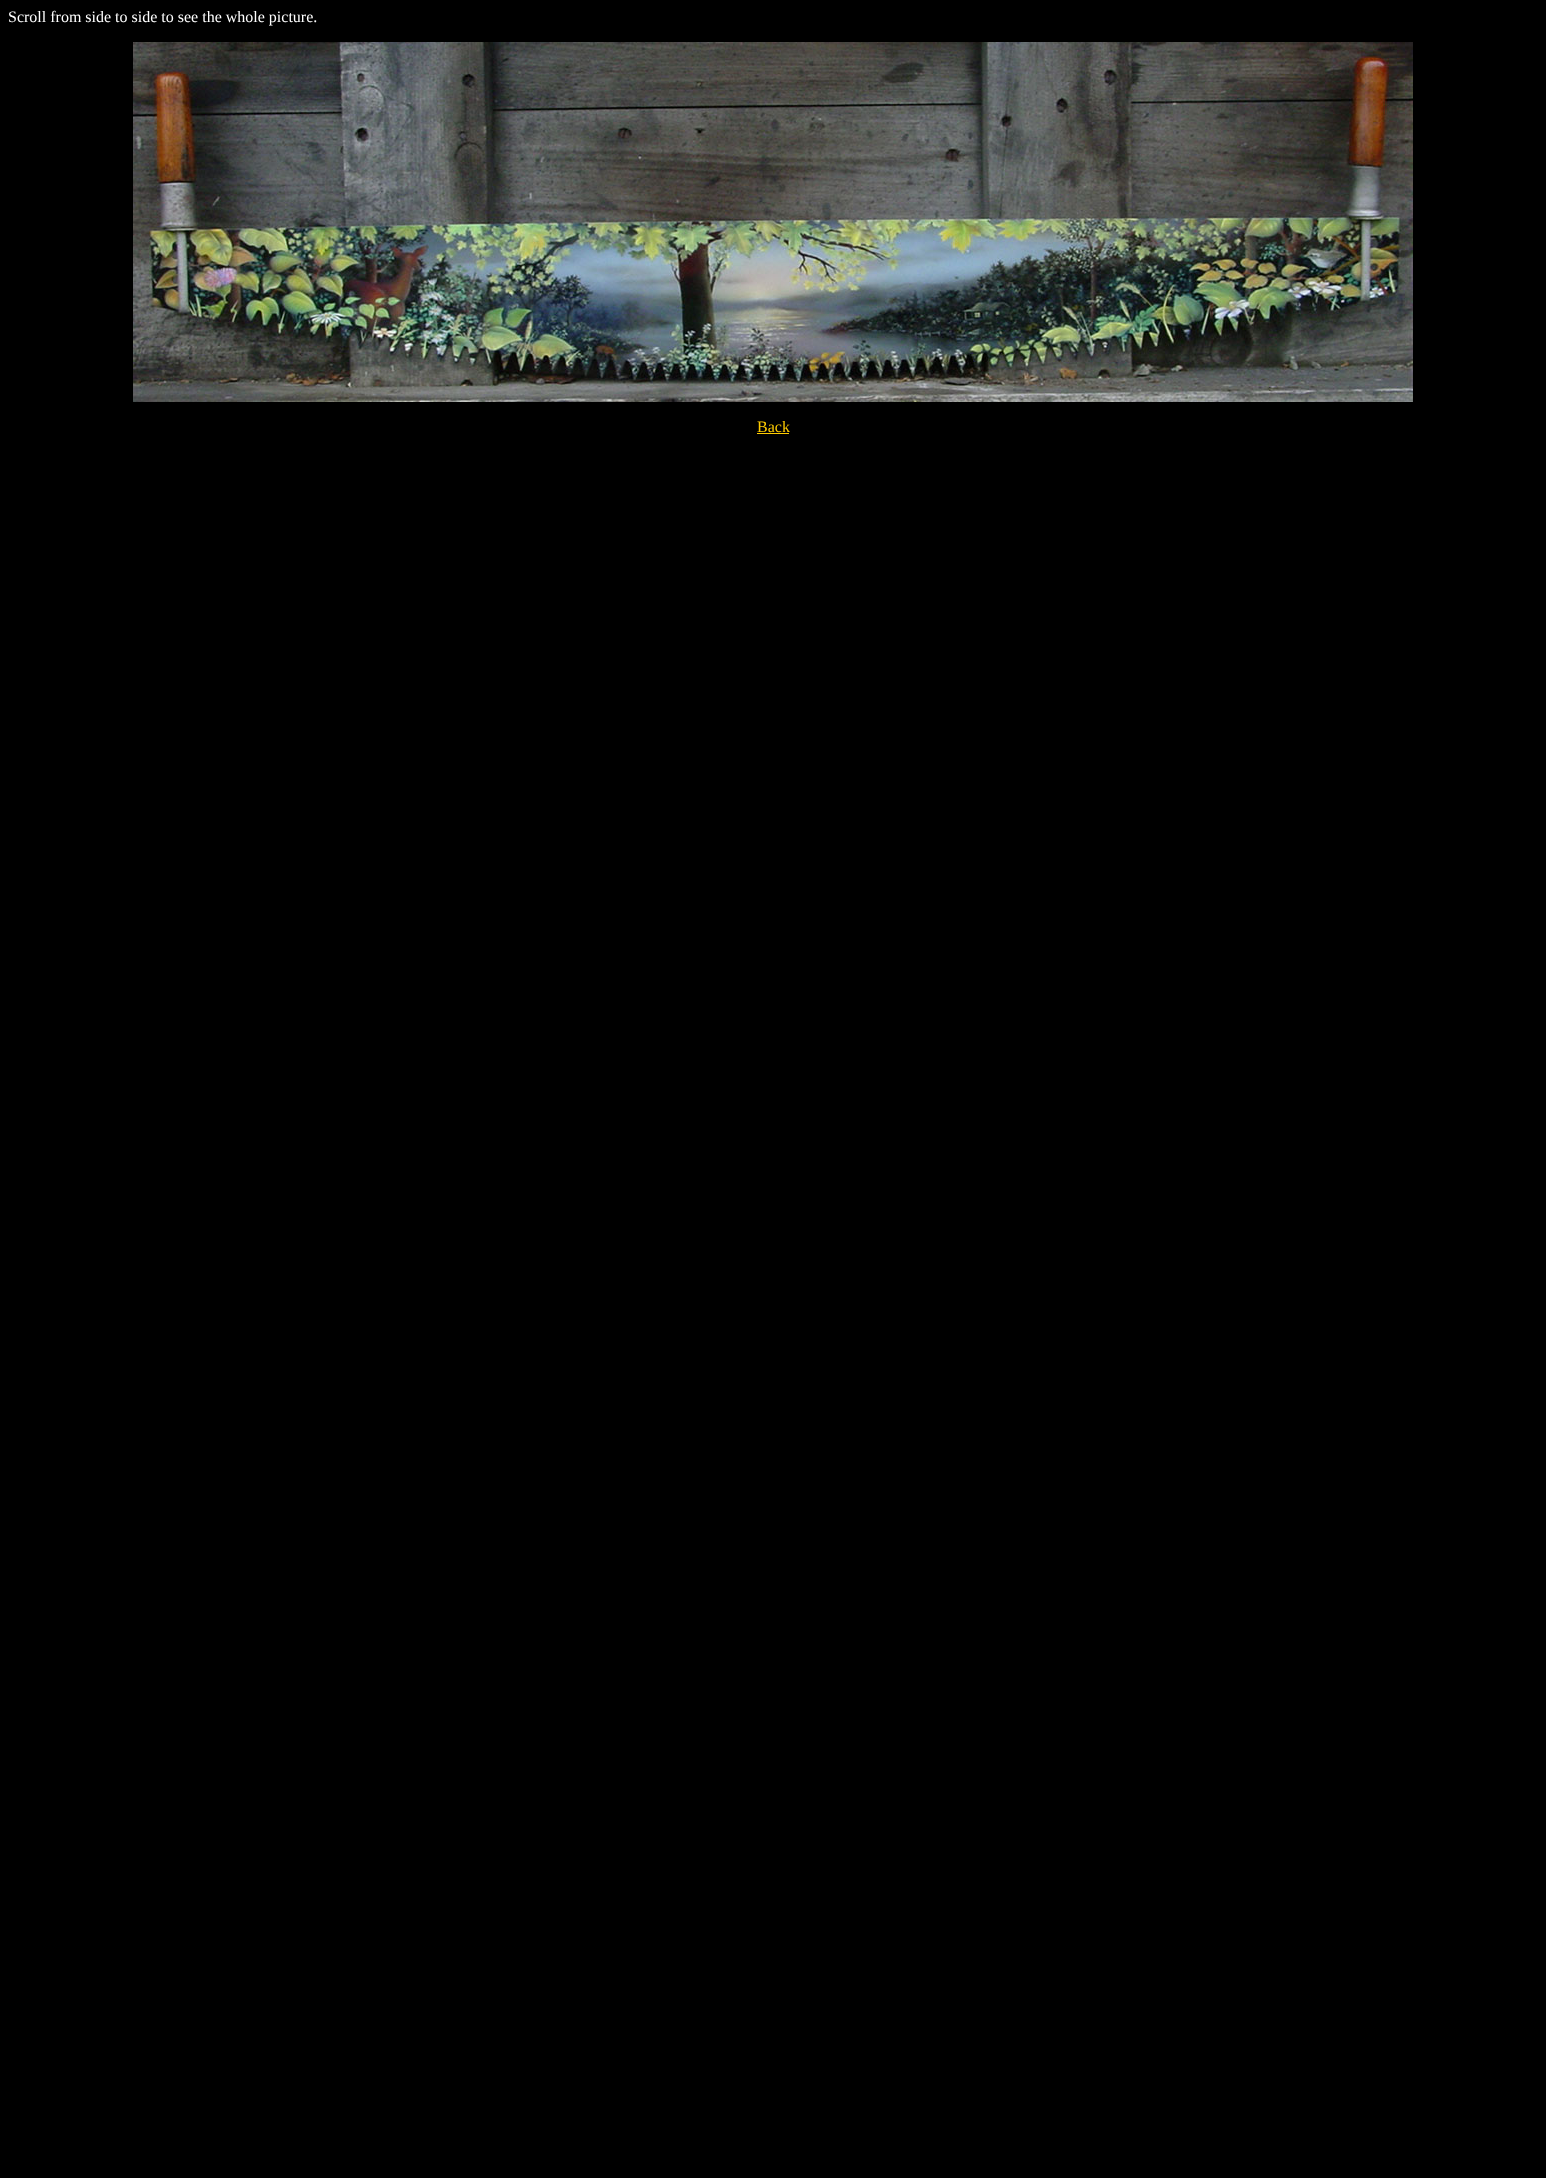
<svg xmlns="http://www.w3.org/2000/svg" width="1546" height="2178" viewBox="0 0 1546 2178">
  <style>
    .t1 { font: 16px Liberation Serif; fill: #fff; }
    .t2 { font: 16px Liberation Serif; fill: #fc0; }
  </style>
  <rect width="100%" height="100%" fill="#000"/>
  <text x="8" y="22" class="t1">Scroll from side to side to see the whole picture.</text>
  <image x="133" y="42" width="1280" height="360" href="images/1.png"/>
  <text x="757" y="432" class="t2">Back</text>
  <rect x="757" y="433" width="32" height="1" fill="#fc0"/>
</svg>
